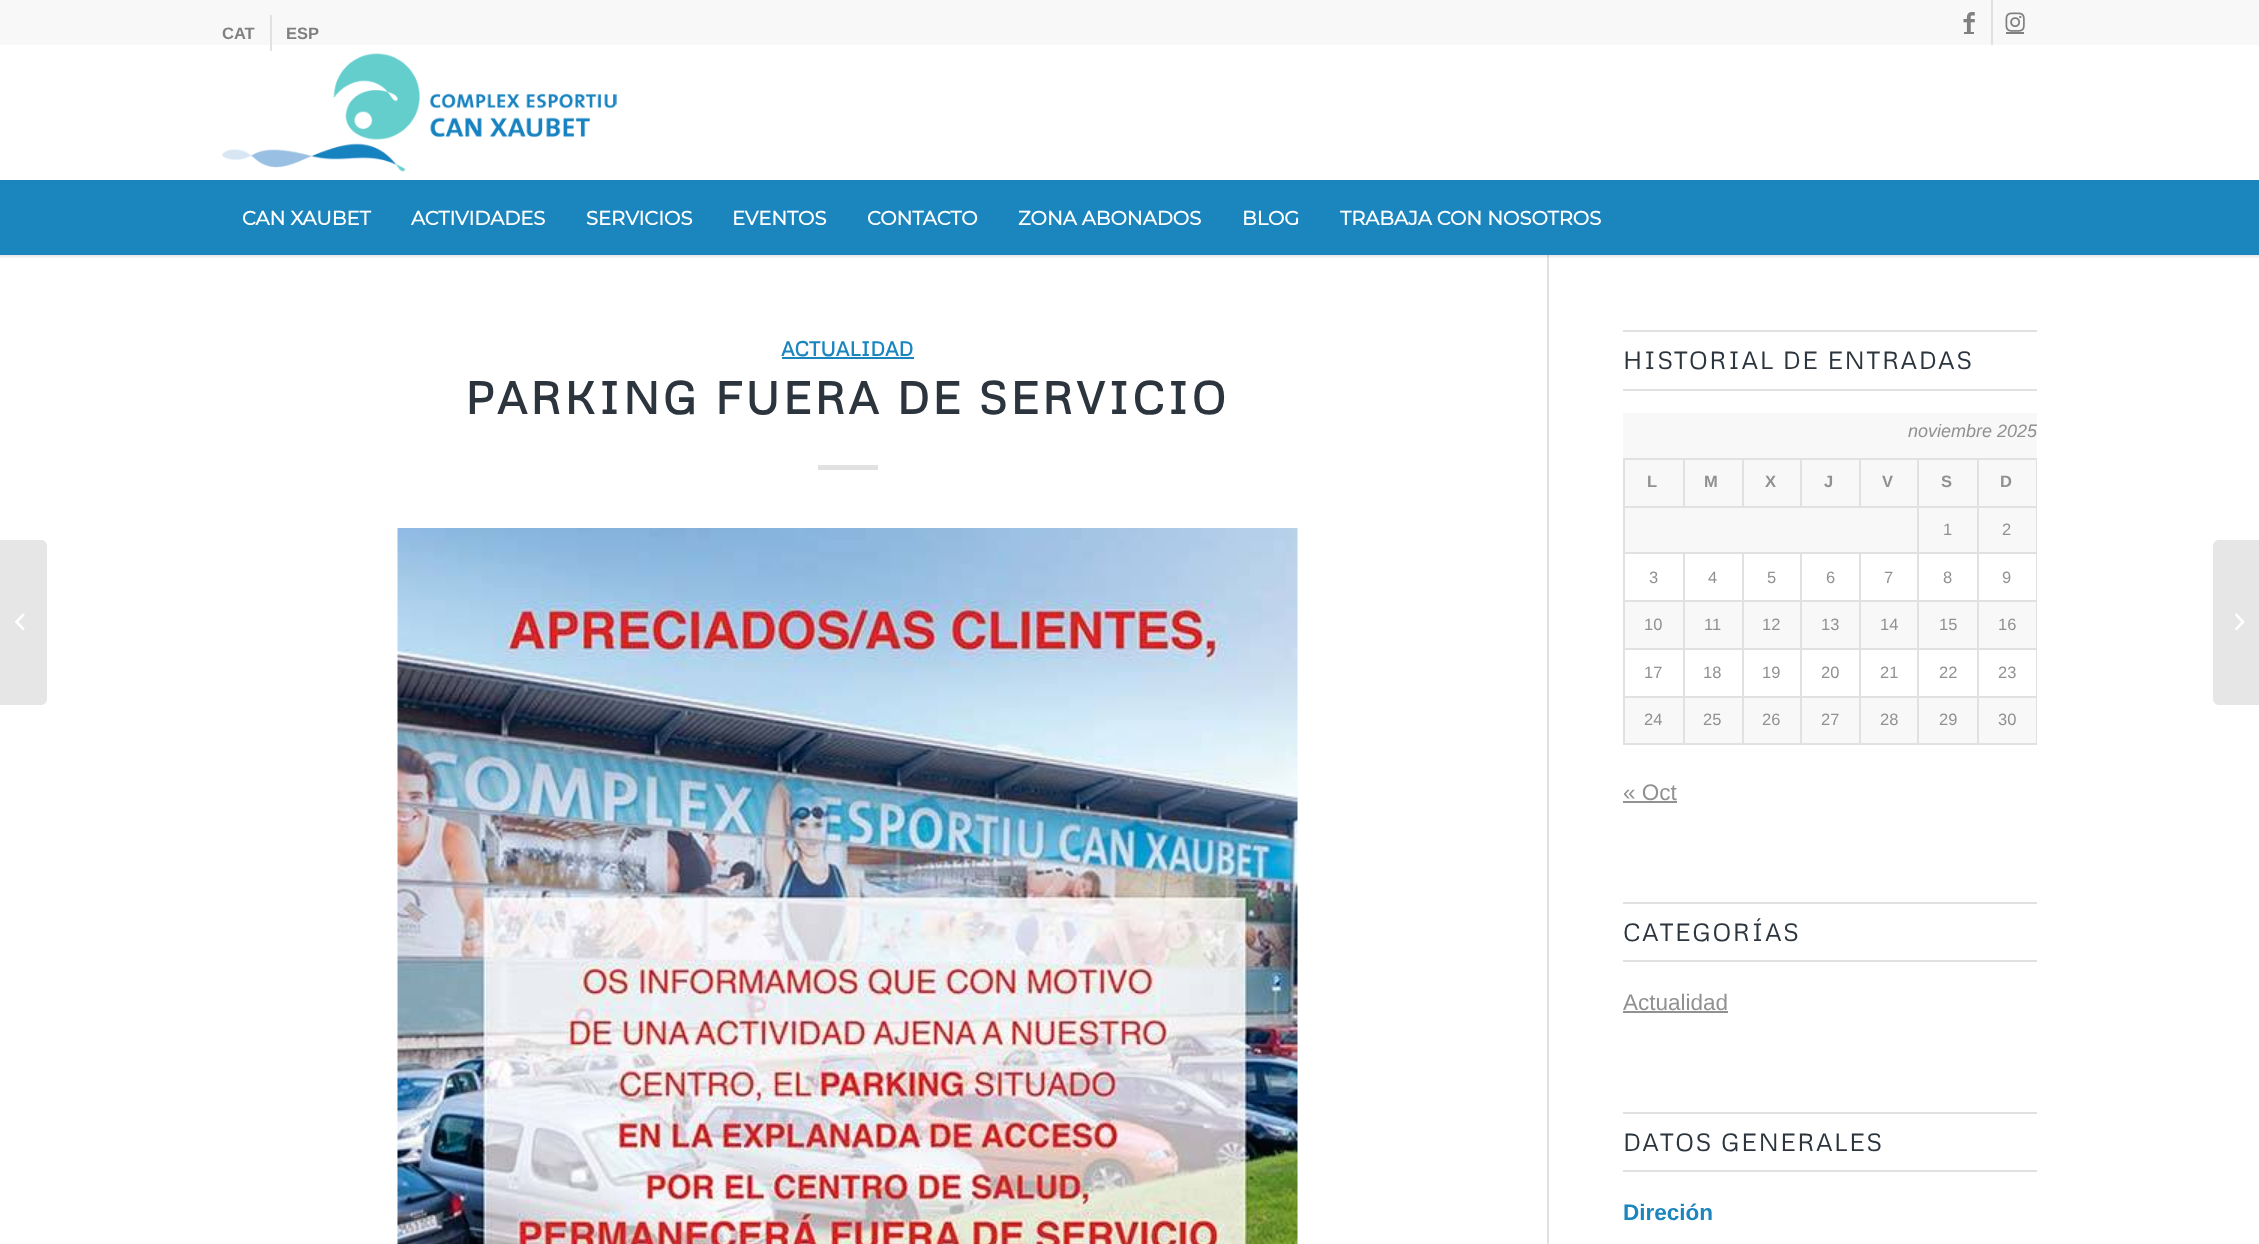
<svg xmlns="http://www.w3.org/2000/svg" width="2259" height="1244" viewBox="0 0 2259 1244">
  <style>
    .t1 { font: bold 16.5px Liberation Sans; fill: #808080; }
    .t2 { font: bold 19.5px Montserrat; fill: #fff; }
    .t3 { font: bold 20.25px Metrophobic; fill: #1b85be; }
    .t4 { font: bold 45px Metrophobic; letter-spacing: 3px; fill: #2c353d; }
    .t5 { font: 24.75px Metrophobic; letter-spacing: 1.5px; fill: #2c353d; }
    .t6 { font: italic 18px Liberation Sans; fill: #919191; }
    .t7 { font: bold 16.5px Liberation Sans; letter-spacing: 2px; fill: #919191; }
    .t8 { font: 16.5px Liberation Sans; fill: #919191; }
    .t9 { font: 22.5px Liberation Sans; fill: #919191; }
    .t10 { font: bold 22.5px Liberation Sans; fill: #1b85be; }
  </style>
  <defs>
    <clipPath id="clip1"><rect x="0" y="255" width="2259" height="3"/></clipPath>
  </defs>
  <rect width="100%" height="100%" fill="#fff"/>
  <rect x="1547" y="255" width="2" height="989" fill="#e1e1e1"/>
  <g clip-path="url(#clip1)">
    <rect x="-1" y="-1" width="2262" height="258" fill="#0000001a" filter="blur(1.5px)"/>
  </g>
  <rect x="0" y="0" width="2259" height="45" fill="#f8f8f8"/>
  <rect x="270" y="15" width="2" height="36" fill="#e1e1e1"/>
  <text x="222" y="39" class="t1">CAT</text>
  <text x="286" y="39" class="t1">ESP</text>
  <rect x="1991" y="0" width="2" height="45" fill="#e1e1e1"/>
  <image x="1963" y="12" width="12" height="20" href="images/1.png"/>
  <rect x="1964" y="32" width="10" height="2" fill="#808080"/>
  <image x="2005" y="12" width="20" height="20" href="images/2.png"/>
  <rect x="2006" y="32" width="18" height="2" fill="#808080"/>
  <image x="222" y="53" width="395" height="119" href="images/3.png"/>
  <rect x="0" y="180" width="2259" height="75" fill="#1b85be"/>
  <text x="242" y="225" class="t2">CAN XAUBET</text>
  <text x="411" y="225" class="t2">ACTIVIDADES</text>
  <text x="586" y="225" class="t2">SERVICIOS</text>
  <text x="732" y="225" class="t2">EVENTOS</text>
  <text x="867" y="225" class="t2">CONTACTO</text>
  <text x="1018" y="225" class="t2">ZONA ABONADOS</text>
  <text x="1242" y="225" class="t2">BLOG</text>
  <text x="1340" y="225" class="t2">TRABAJA CON NOSOTROS</text>
  <path d="M0 540H41C44.5 540 47 542.5 47 546V699C47 702.5 44.5 705 41 705H0Z" fill="#e6e6e6"/>
  <image x="15" y="613" width="10" height="17" href="images/4.png"/>
  <text x="781" y="356" class="t3">ACTUALIDAD</text>
  <rect x="782" y="357" width="132" height="2" fill="#1b85be"/>
  <text x="465" y="414" class="t4">PARKING FUERA DE SERVICIO</text>
  <rect x="818" y="465" width="60" height="5" fill="#e1e1e1"/>
  <image x="397" y="528" width="901" height="716" href="images/5.png"/>
  <rect x="1623" y="330" width="414" height="2" fill="#e1e1e1"/>
  <rect x="1623" y="389" width="414" height="2" fill="#e1e1e1"/>
  <text x="1623" y="369" class="t5">HISTORIAL DE ENTRADAS</text>
  <rect x="1623" y="413" width="414" height="330" fill="#f8f8f8"/>
  <text x="1908" y="437" class="t6">noviembre 2025</text>
  <rect x="1623" y="458" width="414" height="2" fill="#e1e1e1"/>
  <rect x="1623" y="506" width="414" height="2" fill="#e1e1e1"/>
  <rect x="1683" y="458" width="2" height="49" fill="#e1e1e1"/>
  <rect x="2036" y="552" width="1" height="192" fill="#e1e1e1"/>
  <rect x="2036" y="506" width="1" height="48" fill="#e1e1e1"/>
  <rect x="1625" y="554" width="411" height="46" fill="#fff"/>
  <rect x="1625" y="650" width="411" height="46" fill="#fff"/>
  <rect x="1977" y="743" width="60" height="2" fill="#e1e1e1"/>
  <rect x="1977" y="696" width="2" height="48" fill="#e1e1e1"/>
  <rect x="1977" y="696" width="60" height="2" fill="#e1e1e1"/>
  <rect x="1977" y="648" width="2" height="50" fill="#e1e1e1"/>
  <rect x="1977" y="648" width="60" height="2" fill="#e1e1e1"/>
  <rect x="1977" y="600" width="2" height="50" fill="#e1e1e1"/>
  <rect x="1977" y="600" width="60" height="2" fill="#e1e1e1"/>
  <rect x="1977" y="552" width="2" height="50" fill="#e1e1e1"/>
  <rect x="1977" y="552" width="60" height="2" fill="#e1e1e1"/>
  <rect x="1977" y="506" width="2" height="48" fill="#e1e1e1"/>
  <rect x="1917" y="743" width="62" height="2" fill="#e1e1e1"/>
  <rect x="1917" y="696" width="2" height="48" fill="#e1e1e1"/>
  <rect x="1917" y="696" width="62" height="2" fill="#e1e1e1"/>
  <rect x="1917" y="648" width="2" height="50" fill="#e1e1e1"/>
  <rect x="1917" y="648" width="62" height="2" fill="#e1e1e1"/>
  <rect x="1917" y="600" width="2" height="50" fill="#e1e1e1"/>
  <rect x="1917" y="600" width="62" height="2" fill="#e1e1e1"/>
  <rect x="1917" y="552" width="2" height="50" fill="#e1e1e1"/>
  <rect x="1917" y="552" width="62" height="2" fill="#e1e1e1"/>
  <rect x="1917" y="506" width="2" height="48" fill="#e1e1e1"/>
  <rect x="1859" y="743" width="60" height="2" fill="#e1e1e1"/>
  <rect x="1859" y="696" width="2" height="48" fill="#e1e1e1"/>
  <rect x="1859" y="696" width="60" height="2" fill="#e1e1e1"/>
  <rect x="1859" y="648" width="2" height="50" fill="#e1e1e1"/>
  <rect x="1859" y="648" width="60" height="2" fill="#e1e1e1"/>
  <rect x="1859" y="600" width="2" height="50" fill="#e1e1e1"/>
  <rect x="1859" y="600" width="60" height="2" fill="#e1e1e1"/>
  <rect x="1859" y="552" width="2" height="50" fill="#e1e1e1"/>
  <rect x="1800" y="743" width="60" height="2" fill="#e1e1e1"/>
  <rect x="1800" y="696" width="2" height="48" fill="#e1e1e1"/>
  <rect x="1800" y="696" width="60" height="2" fill="#e1e1e1"/>
  <rect x="1800" y="648" width="2" height="50" fill="#e1e1e1"/>
  <rect x="1800" y="648" width="60" height="2" fill="#e1e1e1"/>
  <rect x="1800" y="600" width="2" height="50" fill="#e1e1e1"/>
  <rect x="1800" y="600" width="60" height="2" fill="#e1e1e1"/>
  <rect x="1800" y="552" width="2" height="50" fill="#e1e1e1"/>
  <rect x="1742" y="743" width="60" height="2" fill="#e1e1e1"/>
  <rect x="1742" y="696" width="2" height="48" fill="#e1e1e1"/>
  <rect x="1742" y="696" width="60" height="2" fill="#e1e1e1"/>
  <rect x="1742" y="648" width="2" height="50" fill="#e1e1e1"/>
  <rect x="1742" y="648" width="60" height="2" fill="#e1e1e1"/>
  <rect x="1742" y="600" width="2" height="50" fill="#e1e1e1"/>
  <rect x="1742" y="600" width="60" height="2" fill="#e1e1e1"/>
  <rect x="1742" y="552" width="2" height="50" fill="#e1e1e1"/>
  <rect x="1683" y="743" width="60" height="2" fill="#e1e1e1"/>
  <rect x="1683" y="696" width="2" height="48" fill="#e1e1e1"/>
  <rect x="1683" y="696" width="60" height="2" fill="#e1e1e1"/>
  <rect x="1683" y="648" width="2" height="50" fill="#e1e1e1"/>
  <rect x="1683" y="648" width="60" height="2" fill="#e1e1e1"/>
  <rect x="1683" y="600" width="2" height="50" fill="#e1e1e1"/>
  <rect x="1683" y="600" width="60" height="2" fill="#e1e1e1"/>
  <rect x="1683" y="552" width="2" height="50" fill="#e1e1e1"/>
  <rect x="1623" y="743" width="62" height="2" fill="#e1e1e1"/>
  <rect x="1623" y="696" width="2" height="48" fill="#e1e1e1"/>
  <rect x="1623" y="696" width="62" height="2" fill="#e1e1e1"/>
  <rect x="1623" y="648" width="2" height="50" fill="#e1e1e1"/>
  <rect x="1623" y="648" width="62" height="2" fill="#e1e1e1"/>
  <rect x="1623" y="600" width="2" height="50" fill="#e1e1e1"/>
  <rect x="1623" y="600" width="62" height="2" fill="#e1e1e1"/>
  <rect x="1623" y="552" width="2" height="50" fill="#e1e1e1"/>
  <rect x="1623" y="552" width="296" height="2" fill="#e1e1e1"/>
  <rect x="1623" y="506" width="2" height="48" fill="#e1e1e1"/>
  <rect x="1623" y="458" width="2" height="49" fill="#e1e1e1"/>
  <text x="1647" y="487" class="t7">L</text>
  <rect x="1742" y="458" width="2" height="49" fill="#e1e1e1"/>
  <text x="1704" y="487" class="t7">M</text>
  <rect x="1800" y="458" width="2" height="49" fill="#e1e1e1"/>
  <text x="1765" y="487" class="t7">X</text>
  <rect x="1859" y="458" width="2" height="49" fill="#e1e1e1"/>
  <text x="1824" y="487" class="t7">J</text>
  <rect x="1917" y="458" width="2" height="49" fill="#e1e1e1"/>
  <text x="1882" y="487" class="t7">V</text>
  <rect x="1977" y="458" width="2" height="49" fill="#e1e1e1"/>
  <text x="1941" y="487" class="t7">S</text>
  <rect x="2036" y="458" width="1" height="49" fill="#e1e1e1"/>
  <text x="2000" y="487" class="t7">D</text>
  <text x="1943" y="535" class="t8">1</text>
  <text x="2002" y="535" class="t8">2</text>
  <text x="1649" y="583" class="t8">3</text>
  <text x="1708" y="583" class="t8">4</text>
  <text x="1767" y="583" class="t8">5</text>
  <text x="1826" y="583" class="t8">6</text>
  <text x="1884" y="583" class="t8">7</text>
  <text x="1943" y="583" class="t8">8</text>
  <text x="2002" y="583" class="t8">9</text>
  <text x="1644" y="630" class="t8">10</text>
  <text x="1704" y="630" class="t8">11</text>
  <text x="1762" y="630" class="t8">12</text>
  <text x="1821" y="630" class="t8">13</text>
  <text x="1880" y="630" class="t8">14</text>
  <text x="1939" y="630" class="t8">15</text>
  <text x="1998" y="630" class="t8">16</text>
  <text x="1644" y="678" class="t8">17</text>
  <text x="1703" y="678" class="t8">18</text>
  <text x="1762" y="678" class="t8">19</text>
  <text x="1821" y="678" class="t8">20</text>
  <text x="1880" y="678" class="t8">21</text>
  <text x="1939" y="678" class="t8">22</text>
  <text x="1998" y="678" class="t8">23</text>
  <text x="1644" y="725" class="t8">24</text>
  <text x="1703" y="725" class="t8">25</text>
  <text x="1762" y="725" class="t8">26</text>
  <text x="1821" y="725" class="t8">27</text>
  <text x="1880" y="725" class="t8">28</text>
  <text x="1939" y="725" class="t8">29</text>
  <text x="1998" y="725" class="t8">30</text>
  <text x="1623" y="800" class="t9">« Oct</text>
  <rect x="1623" y="801" width="54" height="2" fill="#919191"/>
  <rect x="1623" y="902" width="414" height="2" fill="#e1e1e1"/>
  <rect x="1623" y="960" width="414" height="2" fill="#e1e1e1"/>
  <text x="1623" y="941" class="t5">CATEGORÍAS</text>
  <text x="1623" y="1010" class="t9">Actualidad</text>
  <rect x="1623" y="1011" width="105" height="2" fill="#919191"/>
  <rect x="1623" y="1112" width="414" height="2" fill="#e1e1e1"/>
  <rect x="1623" y="1170" width="414" height="2" fill="#e1e1e1"/>
  <text x="1623" y="1151" class="t5">DATOS GENERALES</text>
  <text x="1623" y="1220" class="t10">Direción</text>
  <path d="M2219 540H2259V705H2219C2215.5 705 2213 702.5 2213 699V546C2213 542.5 2215.5 540 2219 540Z" fill="#e6e6e6"/>
  <image x="2235" y="613" width="10" height="17" href="images/6.png"/>
</svg>
